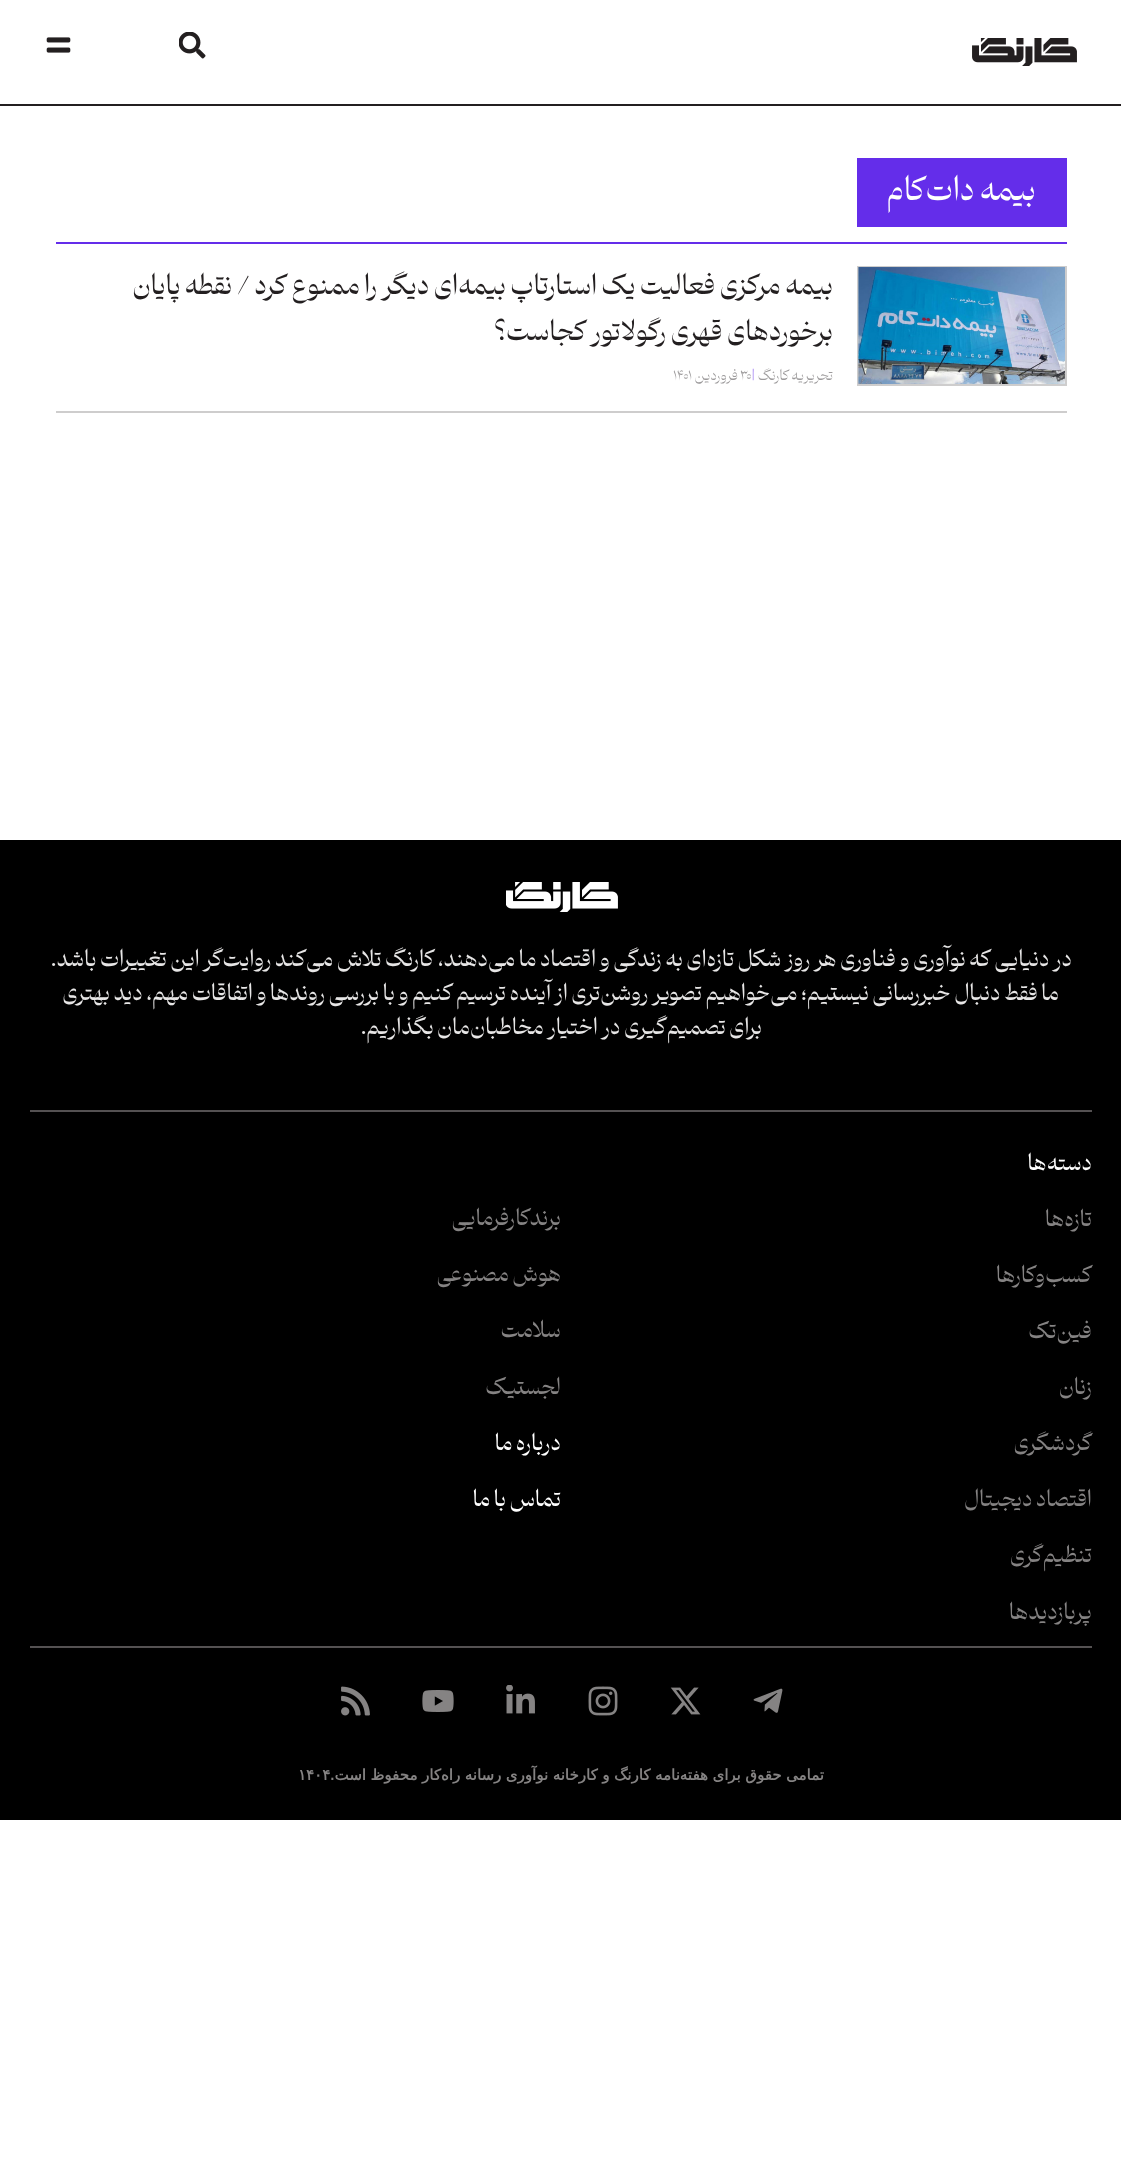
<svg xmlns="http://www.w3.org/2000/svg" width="1121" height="2170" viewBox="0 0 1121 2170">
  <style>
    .t1 { font: 500 30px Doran; direction: rtl; fill: #fff; }
    .t2 { font: 500 25.5px Doran; direction: rtl; fill: #231f20; }
    .t3 { font: 13.5px Doran; direction: rtl; fill: #9d9b9c; }
    .t4 { font: 13.5px Doran; fill: #642dea; }
    .t5 { font: 13.5px Doran; fill: #9d9b9c; }
    .t6 { font: 500 21px Doran; direction: rtl; fill: #e7e6e6; }
    .t7 { font: 500 21px Doran; direction: rtl; fill: #fff; }
    .t8 { font: 500 21px Doran; direction: rtl; fill: #858383; }
    .t9 { font: bold 15px DejaVu Sans; direction: rtl; fill: #858383; }
    .t10 { font: bold 15px DejaVu Sans; fill: #858383; }
  </style>
  <rect width="100%" height="100%" fill="#fff"/>
  <rect x="0" y="104" width="1121" height="2" fill="#231f20"/>
  <image x="972" y="38" width="105" height="28" href="images/1.png"/>
  <image x="179" y="32" width="27" height="27" href="images/2.png"/>
  <image x="46" y="37" width="25" height="16" href="images/3.png"/>
  <rect x="857" y="158" width="210" height="69" fill="#642dea"/>
  <text x="1036" y="200" class="t1">بیمه دات‌کام</text>
  <rect x="56" y="242" width="1011" height="2" fill="#642dea"/>
  <rect x="56" y="411" width="1011" height="2" fill="#cecdcd"/>
  <rect x="858" y="267" width="208" height="118" fill="none" stroke="#cecdcd" stroke-width="2"/>
  <image x="858" y="267" width="207" height="117" href="images/4.png"/>
  <text x="833" y="294" class="t2">بیمه مرکزی فعالیت یک استارتاپ بیمه‌ای دیگر را ممنوع کرد / نقطه پایان</text>
  <text x="833" y="340" class="t2">برخوردهای قهری رگولاتور کجاست؟</text>
  <text x="833" y="380" class="t3">تحریریه کارنگ</text>
  <text x="752" y="380" class="t4">|</text>
  <text x="740" y="380" class="t5">۳۰</text>
  <text x="738" y="380" class="t3">فروردین</text>
  <text x="673" y="380" class="t5">۱۴۰۱</text>
  <rect x="0" y="840" width="1121" height="980" fill="#000"/>
  <image x="506" y="882" width="112" height="30" href="images/5.png"/>
  <text x="1072" y="966" class="t6">در دنیایی که نوآوری و فناوری هر روز شکل تازه‌ای به زندگی و اقتصاد ما می‌دهند، کارنگ تلاش می‌کند روایت‌گر این تغییرات باشد.</text>
  <text x="1059" y="1000" class="t6">ما فقط دنبال خبررسانی نیستیم؛ می‌خواهیم تصویر روشن‌تری از آینده ترسیم کنیم و با بررسی روندها و اتفاقات مهم، دید بهتری</text>
  <text x="762" y="1034" class="t6">برای تصمیم‌گیری در اختیار مخاطبان‌مان بگذاریم.</text>
  <rect x="30" y="1110" width="1062" height="2" fill="#545152"/>
  <text x="1092" y="1170" class="t7">دسته‌ها</text>
  <text x="1092" y="1226" class="t8">تازه‌ها</text>
  <text x="1092" y="1282" class="t8">کسب‌وکار‌ها</text>
  <text x="1092" y="1338" class="t8">فین‌تک</text>
  <text x="1092" y="1394" class="t8">زنان</text>
  <text x="561" y="1225" class="t8">برندکارفرمایی</text>
  <text x="561" y="1281" class="t8">هوش مصنوعی</text>
  <text x="561" y="1337" class="t8">سلامت</text>
  <text x="561" y="1394" class="t8">لجستیک</text>
  <text x="1092" y="1450" class="t8">گردشگری</text>
  <text x="1092" y="1506" class="t8">اقتصاد دیجیتال</text>
  <text x="1092" y="1562" class="t8">تنظیم‌گری</text>
  <text x="1092" y="1619" class="t8">پربازدید‌ها</text>
  <text x="561" y="1450" class="t7">درباره ما</text>
  <text x="561" y="1506" class="t7">تماس با ما</text>
  <rect x="30" y="1646" width="1062" height="2" fill="#545152"/>
  <image x="753" y="1688" width="30" height="25" href="images/6.png"/>
  <image x="670" y="1687" width="31" height="28" href="images/7.png"/>
  <image x="588" y="1686" width="30" height="30" href="images/8.png"/>
  <image x="506" y="1685" width="29" height="29" href="images/9.png"/>
  <image x="422" y="1690" width="32" height="22" href="images/10.png"/>
  <image x="341" y="1686" width="29" height="30" href="images/11.png"/>
  <text x="824" y="1780" word-spacing="-0.25" class="t9">تمامی حقوق برای هفته‌نامه کارنگ و کارخانه نوآوری رسانه راه‌کار محفوظ است.</text>
  <text x="298" y="1780" class="t10">۱۴۰۴</text>
</svg>
